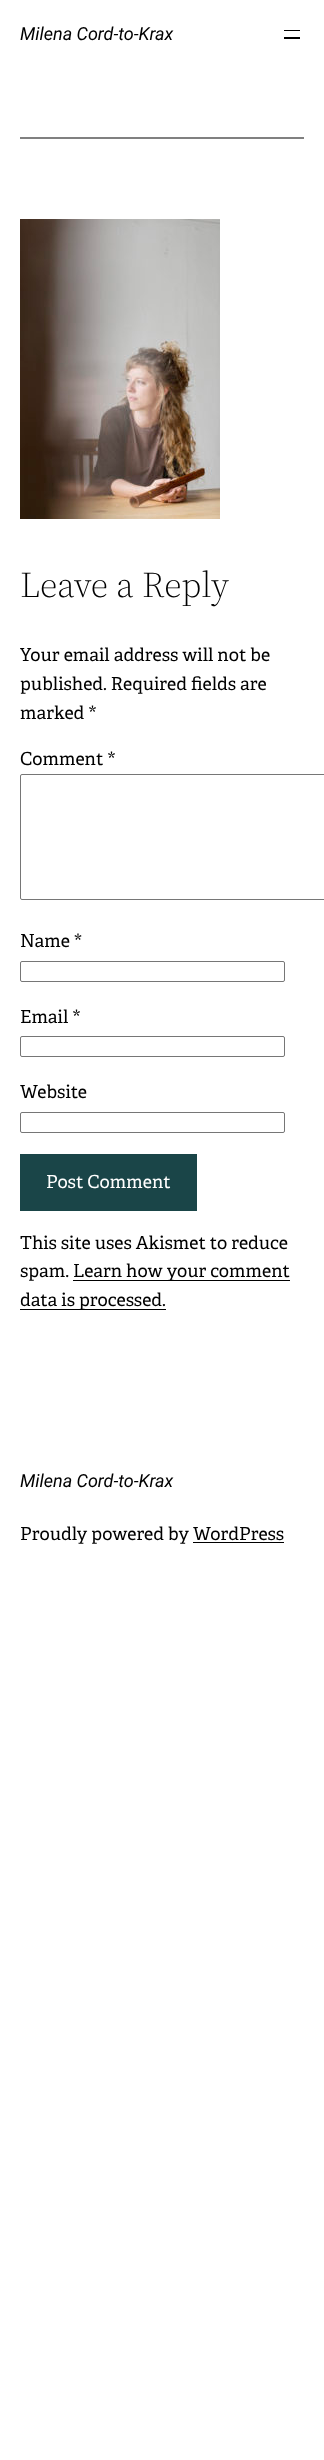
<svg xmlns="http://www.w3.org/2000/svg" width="324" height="2460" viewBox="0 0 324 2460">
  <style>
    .t1 { font: italic 18px Roboto; fill: #000; }
    .t2 { font: 300 36px 'Source Serif 4'; fill: #000; }
    .t3 { font: 18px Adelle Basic; fill: #000; }
    .t4 { font: 18px Adelle Basic; fill: #fff; }
  </style>
  <rect width="100%" height="100%" fill="#fff"/>
  <text x="20" y="40" class="t1">Milena Cord-to-Krax</text>
  <rect x="284" y="30" width="16" height="1" fill="#000"/>
  <rect x="284" y="37" width="16" height="2" fill="#000"/>
  <rect x="20" y="137" width="284" height="2" fill="#808080"/>
  <image x="20" y="219" width="200" height="300" href="images/1.png"/>
  <text x="20" y="597" class="t2">Leave a Reply</text>
  <text x="20" y="661" class="t3">Your email address will not be</text>
  <text x="20" y="690" class="t3">published. Required fields are</text>
  <text x="20" y="719" class="t3">marked *</text>
  <text x="20" y="765" class="t3">Comment *</text>
  <rect x="20.5" y="774.5" width="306" height="125" rx="1.5" fill="none" stroke="#767676"/>
  <text x="20" y="947" class="t3">Name *</text>
  <rect x="20.5" y="961.5" width="264" height="20" rx="1.5" fill="none" stroke="#767676"/>
  <text x="20" y="1023" class="t3">Email *</text>
  <rect x="20.5" y="1036.5" width="264" height="20" rx="1.5" fill="none" stroke="#767676"/>
  <text x="20" y="1098" class="t3">Website</text>
  <rect x="20.5" y="1112.5" width="264" height="20" rx="1.5" fill="none" stroke="#767676"/>
  <rect x="20" y="1154" width="177" height="57" fill="#1a4548"/>
  <text x="46" y="1188" class="t4">Post Comment</text>
  <text x="20" y="1249" class="t3">This site uses Akismet to reduce</text>
  <text x="20" y="1277" class="t3">spam.</text>
  <rect x="73" y="1280" width="217" height="1" fill="#000"/>
  <text x="73" y="1277" class="t3">Learn how your comment</text>
  <rect x="20" y="1309" width="146" height="1" fill="#000"/>
  <text x="20" y="1306" class="t3">data is processed.</text>
  <text x="20" y="1487" class="t1">Milena Cord-to-Krax</text>
  <text x="20" y="1540" class="t3">Proudly powered by WordPress</text>
  <rect x="193" y="1542" width="91" height="1" fill="#000"/>
</svg>
